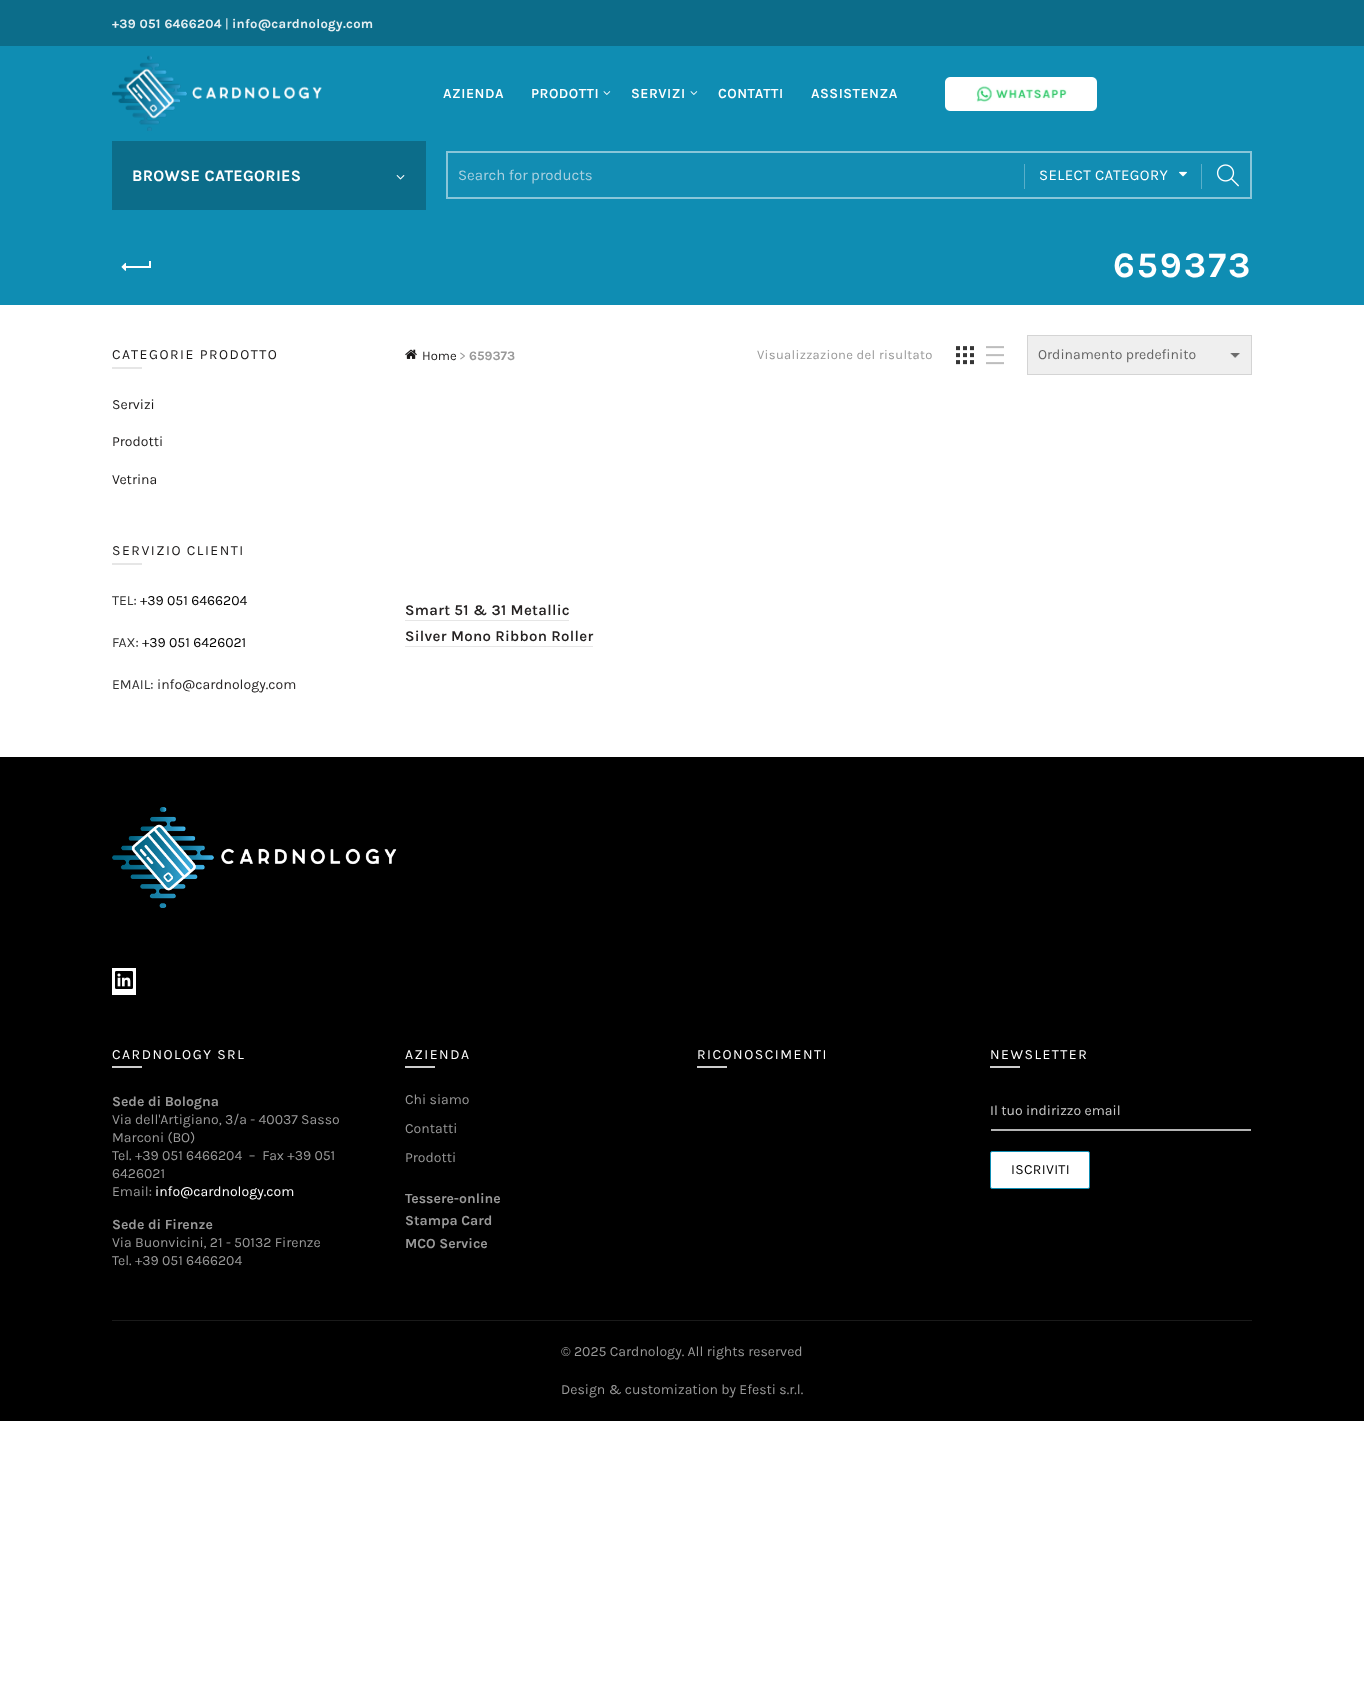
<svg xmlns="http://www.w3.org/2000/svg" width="1364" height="1708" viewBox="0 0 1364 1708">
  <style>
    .t1 { font: bold 13px Karla; letter-spacing: 0.3px; fill: #e7f0f3; }
    .t2 { font: 13px Karla; letter-spacing: 0.3px; fill: #e7f0f3; }
    .t3 { font: 600 14px Karla; letter-spacing: 0.5px; fill: #fff; }
    .t4 { font: bold 16px Karla; letter-spacing: 0.3px; fill: #fff; }
    .t5 { font: 15px Karla; fill: #abd1e0; }
    .t6 { font: 15px Karla; letter-spacing: 0.4px; fill: #fff; }
    .t7 { font: bold 36px Karla; letter-spacing: 2px; fill: #fff; }
    .t8 { font: 14px Karla; letter-spacing: 1.5px; fill: #1b1919; }
    .t9 { font: 14px Karla; fill: #1b1919; }
    .t10 { font: 14px Karla; fill: #333; }
    .t11 { font: 14px Karla; fill: #000; }
    .t12 { font: 14px Karla; fill: #252222; }
    .t13 { font: 13px Karla; fill: #1b1919; }
    .t14 { font: 13px Karla; fill: #999; }
    .t15 { font: bold 13px Karla; fill: #999; }
    .t16 { font: 13px Karla; letter-spacing: 0.3px; fill: #999; }
    .t17 { font: 14px Karla; fill: #636363; }
    .t18 { font: 600 15px Karla; letter-spacing: 0.3px; fill: #252222; }
    .t19 { font: 14px Karla; letter-spacing: 1.5px; fill: #fff; }
    .t20 { font: bold 14px Karla; fill: #999; }
    .t21 { font: 14px Karla; fill: #999; }
    .t22 { font: 14px Karla; fill: #fff; }
    .t23 { font: 14px Karla; fill: #ccc; }
    .t24 { font: 14px Karla; letter-spacing: 0.3px; fill: #000; }
  </style>
  <rect width="100%" height="100%" fill="#fff"/>
  <rect x="0" y="0" width="1364" height="46" fill="#0c6d8a"/>
  <text x="112" y="28" class="t1">+39 051 6466204</text>
  <text x="225" y="28" class="t2">|</text>
  <text x="232" y="28" class="t1">info@cardnology.com</text>
  <rect x="0" y="46" width="1364" height="259" fill="#0f8db3"/>
  <image x="112" y="55" width="210" height="76" href="images/1.png"/>
  <text x="443" y="98" class="t3">AZIENDA</text>
  <text x="531" y="98" class="t3">PRODOTTI</text>
  <image x="603" y="91" width="8" height="4" href="images/2.png"/>
  <text x="631" y="98" class="t3">SERVIZI</text>
  <image x="690" y="91" width="8" height="4" href="images/2.png"/>
  <text x="718" y="98" class="t3">CONTATTI</text>
  <text x="811" y="98" class="t3">ASSISTENZA</text>
  <image x="945" y="77" width="152" height="34" href="images/3.png"/>
  <rect x="112" y="141" width="314" height="69" fill="#0c6d8a"/>
  <text x="132" y="181" class="t4">BROWSE CATEGORIES</text>
  <image x="396" y="175" width="9" height="5" href="images/4.png"/>
  <rect x="447" y="152" width="804" height="46" fill="#128db3" stroke="#89c6d9" stroke-width="2"/>
  <text x="458" y="180" class="t5">Search for products</text>
  <rect x="1024" y="164" width="1" height="25" fill="#59afca"/>
  <text x="1039" y="180" class="t6">SELECT CATEGORY</text>
  <image x="1179" y="171" width="8" height="6" href="images/5.png"/>
  <rect x="1201" y="164" width="1" height="25" fill="#59afca"/>
  <image x="1216" y="164" width="23" height="23" href="images/6.png"/>
  <rect x="125" y="266" width="25" height="2" fill="#fff"/>
  <image x="121" y="262" width="5" height="9" href="images/7.png"/>
  <rect x="149" y="261" width="2" height="7" fill="#fff"/>
  <text x="1113" y="277" class="t7">659373</text>
  <text x="112" y="359" class="t8">CATEGORIE PRODOTTO</text>
  <rect x="112" y="367" width="30" height="2" fill="#e6e6e6"/>
  <text x="112" y="409" class="t9">Servizi</text>
  <text x="112" y="446" class="t9">Prodotti</text>
  <text x="112" y="484" class="t9">Vetrina</text>
  <text x="112" y="555" class="t8">SERVIZIO CLIENTI</text>
  <rect x="112" y="563" width="30" height="2" fill="#e6e6e6"/>
  <text x="112" y="605" class="t10">TEL:</text>
  <text x="140" y="605" class="t11">+39 051 6466204</text>
  <text x="112" y="647" class="t10">FAX:</text>
  <text x="142" y="647" class="t11">+39 051 6426021</text>
  <text x="112" y="689" class="t10">EMAIL:</text>
  <text x="157" y="689" class="t12">info@cardnology.com</text>
  <image x="405" y="349" width="12" height="10" href="images/8.png"/>
  <text x="422" y="360" class="t13">Home</text>
  <text x="459" y="360" class="t14">&gt;</text>
  <text x="469" y="360" class="t15">659373</text>
  <text x="757" y="359" class="t16">Visualizzazione del risultato</text>
  <image x="956" y="346" width="18" height="19" href="images/9.png"/>
  <image x="986" y="346" width="18" height="19" href="images/10.png"/>
  <rect x="1028" y="336" width="223" height="38" fill="#efefef"/>
  <image x="1230" y="353" width="10" height="5" href="images/11.png"/>
  <rect x="1027.5" y="335.5" width="224" height="39" fill="none" stroke="#d4d4d4"/>
  <text x="1038" y="359" class="t17">Ordinamento predefinito</text>
  <text x="405" y="615" class="t18">Smart 51 &amp; 31 Metallic</text>
  <rect x="405" y="620" width="164" height="1" fill="#e6e6e6"/>
  <text x="405" y="641" class="t18">Silver Mono Ribbon Roller</text>
  <rect x="405" y="646" width="188" height="1" fill="#e6e6e6"/>
  <rect x="0" y="757" width="1364" height="664" fill="#000"/>
  <image x="112" y="807" width="285" height="101" href="images/12.png"/>
  <rect x="112" y="968" width="24" height="27" fill="#fff"/>
  <image x="115" y="971" width="18" height="18" href="images/13.png"/>
  <text x="112" y="1059" class="t19">CARDNOLOGY SRL</text>
  <rect x="112" y="1066" width="30" height="2" fill="#ccc"/>
  <text x="112" y="1106" class="t20">Sede di Bologna</text>
  <text x="112" y="1124" class="t21">Via dell'Artigiano, 3/a - 40037 Sasso</text>
  <text x="112" y="1142" class="t21">Marconi (BO)</text>
  <text x="112" y="1160" class="t21" xml:space="preserve">Tel. +39 051 6466204  –  Fax +39 051</text>
  <text x="112" y="1178" class="t21">6426021</text>
  <text x="112" y="1196" class="t21">Email:</text>
  <text x="155" y="1196" class="t22">info@cardnology.com</text>
  <text x="112" y="1229" class="t20">Sede di Firenze</text>
  <text x="112" y="1247" class="t21">Via Buonvicini, 21 - 50132 Firenze</text>
  <text x="112" y="1265" class="t21">Tel. +39 051 6466204</text>
  <text x="405" y="1059" class="t19">AZIENDA</text>
  <rect x="405" y="1066" width="30" height="2" fill="#ccc"/>
  <text x="405" y="1104" class="t21">Chi siamo</text>
  <text x="405" y="1133" class="t21">Contatti</text>
  <text x="405" y="1162" class="t21">Prodotti</text>
  <text x="405" y="1203" class="t20">Tessere-online</text>
  <text x="405" y="1225" class="t20">Stampa Card</text>
  <text x="405" y="1248" class="t20">MCO Service</text>
  <text x="697" y="1059" class="t19">RICONOSCIMENTI</text>
  <rect x="697" y="1066" width="30" height="2" fill="#ccc"/>
  <text x="990" y="1059" class="t19">NEWSLETTER</text>
  <rect x="990" y="1066" width="30" height="2" fill="#ccc"/>
  <rect x="991" y="1129" width="260" height="2" fill="#b3b3b3"/>
  <text x="990" y="1115" class="t23">Il tuo indirizzo email</text>
  <rect x="990.5" y="1151.5" width="99" height="37" rx="1.5" fill="#fff" stroke="#0f8db3"/>
  <text x="1011" y="1174" class="t24">ISCRIVITI</text>
  <rect x="112" y="1320" width="1140" height="1" fill="#1a1a1a"/>
  <text x="561" y="1356" class="t21">© 2025 Cardnology. All rights reserved</text>
  <text x="561" y="1394" class="t21">Design &amp; customization by Efesti s.r.l.</text>
</svg>
